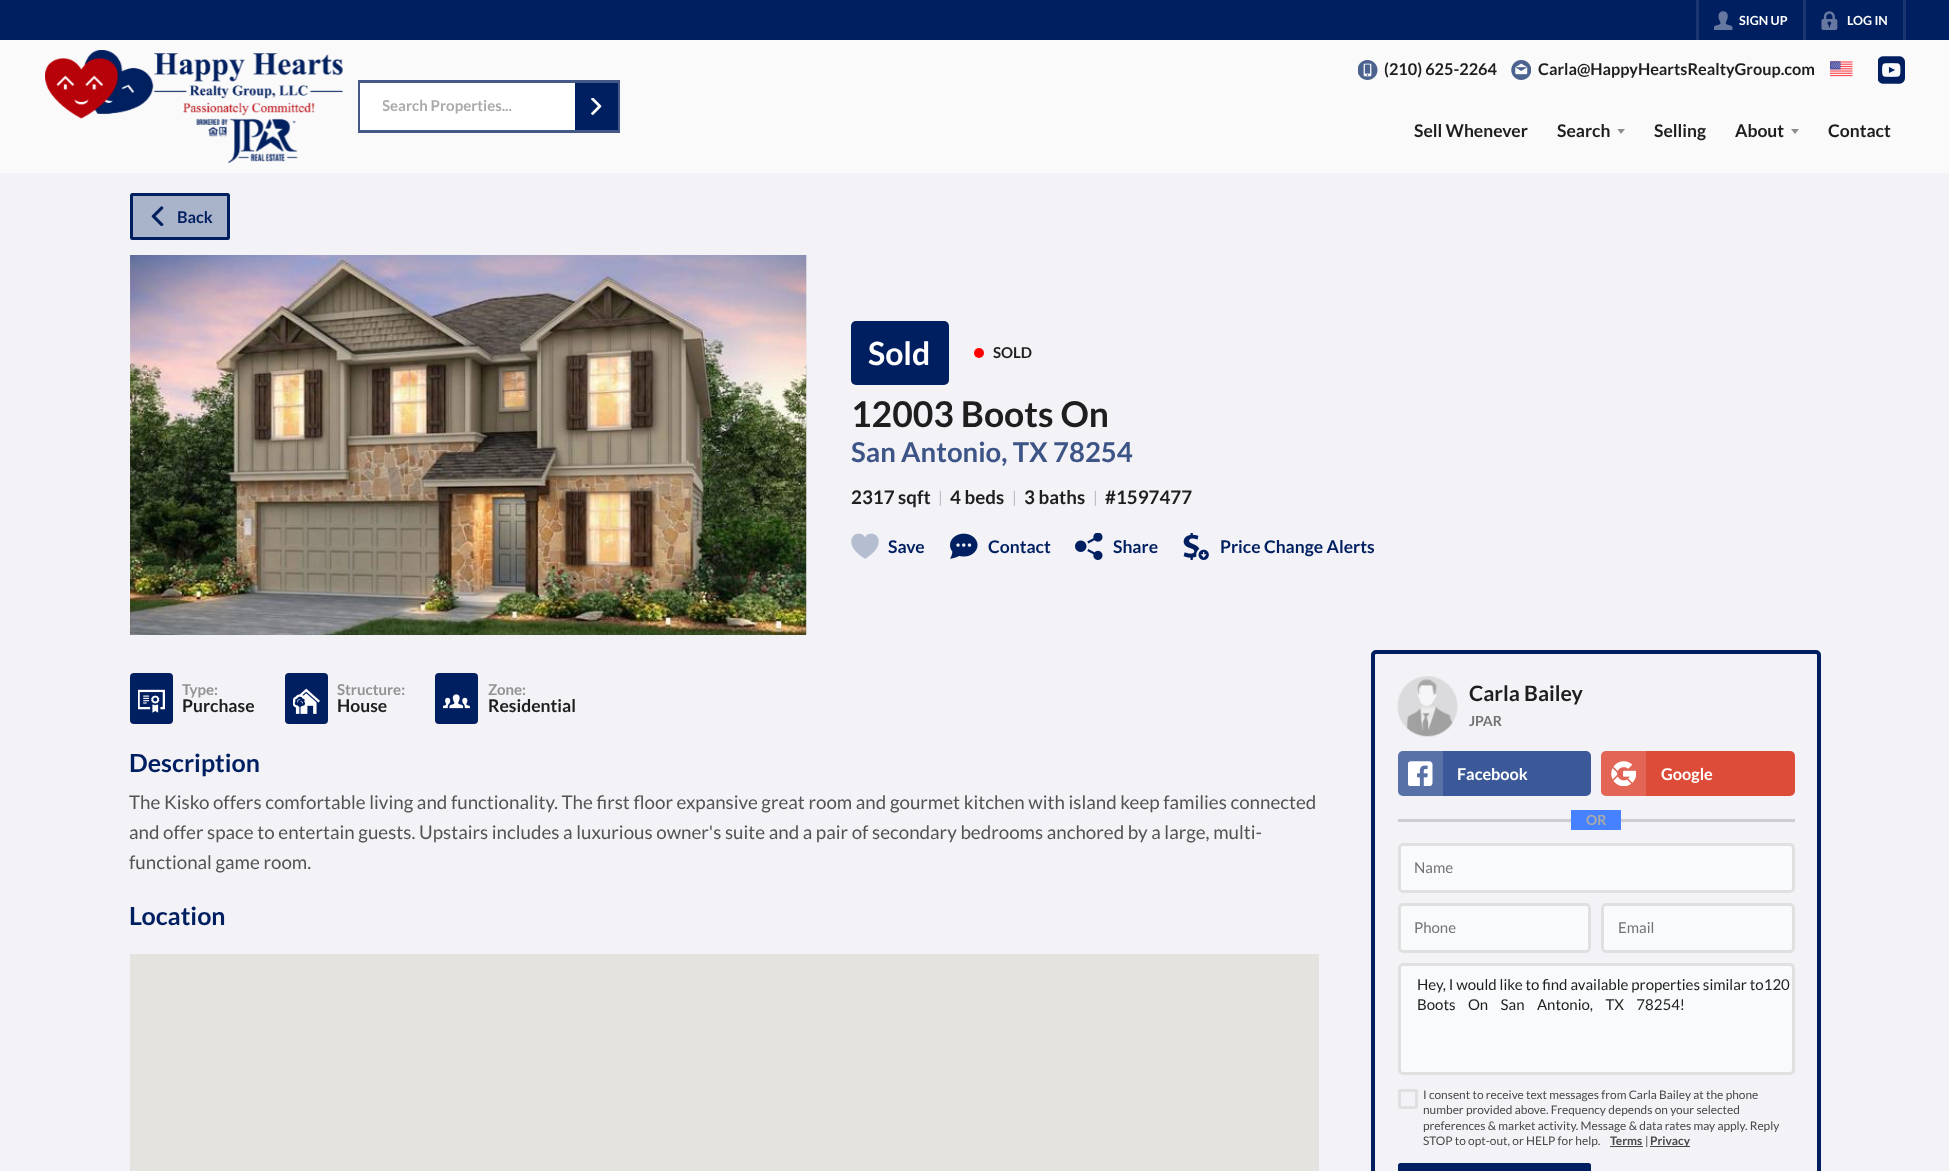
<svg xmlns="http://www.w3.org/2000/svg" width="1949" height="1171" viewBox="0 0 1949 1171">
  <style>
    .t1 { font: bold 12.5px Lato; fill: #fff; }
    .t2 { font: bold 15px Lato; fill: #aaa; }
    .t3 { font: bold 16.25px Lato; fill: #1e1e1e; }
    .t4 { font: bold 17.5px Lato; fill: #1e1e1e; }
    .t5 { font: bold 16.25px Lato; fill: #001f60; }
    .t6 { font: bold 32px Lato; fill: #fff; }
    .t7 { font: bold 15px Lato; fill: #1e1e1e; }
    .t8 { font: bold 35.5px Lato; fill: #1e1e1e; }
    .t9 { font: bold 27.5px Lato; fill: #3d5486; }
    .t10 { font: bold 18.75px Lato; fill: #1e1e1e; }
    .t11 { font: 16px Lato; fill: #bdbdc1; }
    .t12 { font: bold 17.5px Lato; fill: #001f60; }
    .t13 { font: bold 15px Lato; fill: #939395; }
    .t14 { font: bold 25px Lato; fill: #001f60; }
    .t15 { font: 18.75px Lato; fill: #535354; }
    .t16 { font: bold 21.25px Lato; fill: #1e1e1e; }
    .t17 { font: bold 14px Lato; fill: #737375; }
    .t18 { font: bold 16.25px Lato; fill: #fff; }
    .t19 { font: bold 14px Lato; fill: #aaa; }
    .t20 { font: 15px Lato; fill: #737375; }
    .t21 { font: 15px Lato; fill: #1e1e1e; }
    .t22 { font: 11.9px Lato; fill: #484849; }
    .t23 { font: bold 11.9px Lato; fill: #484849; }
  </style>
  <defs>
    <clipPath id="clip1"><rect x="383" y="96" width="170" height="19"/></clipPath>
  </defs>
  <rect width="100%" height="100%" fill="#f2f2f7"/>
  <rect x="0" y="0" width="1949" height="40" fill="#001f60"/>
  <rect x="1903" y="0" width="3" height="40" fill="#1a3570"/>
  <rect x="1696" y="0" width="3" height="40" fill="#1a3570"/>
  <image x="1714" y="11" width="19" height="19" href="images/1.png"/>
  <text x="1739" y="25" class="t1">SIGN UP</text>
  <rect x="1803" y="0" width="3" height="40" fill="#1a3570"/>
  <image x="1821" y="11" width="17" height="19" href="images/2.png"/>
  <text x="1847" y="25" class="t1">LOG IN</text>
  <rect x="0" y="40" width="1949" height="133" fill="#fafafa"/>
  <image x="45" y="50" width="298" height="113" href="images/3.png"/>
  <rect x="359.5" y="81.5" width="259" height="50" fill="none" stroke="#445987" stroke-width="3"/>
  <rect x="360" y="83" width="215" height="47" fill="#fff"/>
  <g clip-path="url(#clip1)">
    <text x="382" y="111" class="t2">Search Properties...</text>
  </g>
  <rect x="575" y="83" width="43" height="47" fill="#001f60"/>
  <image x="591" y="98" width="11" height="17" href="images/4.png"/>
  <image x="1358" y="60" width="20" height="20" href="images/5.png"/>
  <text x="1384" y="75" class="t3">(210) 625-2264</text>
  <image x="1511" y="60" width="20" height="20" href="images/6.png"/>
  <text x="1538" y="75" class="t3">Carla@HappyHeartsRealtyGroup.com</text>
  <image x="1830" y="61" width="23" height="16" href="images/7.png"/>
  <image x="1878" y="56" width="27" height="28" href="images/8.png"/>
  <text x="1414" y="137" class="t4">Sell Whenever</text>
  <text x="1557" y="137" class="t4">Search</text>
  <path d="M1617.5 129H1625L1621 134Z" fill="#8c8c8c"/>
  <text x="1654" y="137" class="t4">Selling</text>
  <text x="1735" y="137" class="t4">About</text>
  <path d="M1791 129H1799L1795 134Z" fill="#8c8c8c"/>
  <text x="1828" y="137" class="t4">Contact</text>
  <rect x="131.5" y="194.5" width="97" height="44" rx="1" fill="#a9b3ca" stroke="#001f60" stroke-width="3"/>
  <image x="151" y="206" width="13" height="20" href="images/9.png"/>
  <text x="177" y="223" class="t5">Back</text>
  <image x="130" y="255" width="677" height="380" href="images/10.png"/>
  <rect x="851" y="321" width="98" height="64" rx="5" fill="#001f60"/>
  <text x="868" y="365" class="t6">Sold</text>
  <circle cx="979" cy="353" r="5" fill="#f00"/>
  <text x="993" y="358" class="t7">SOLD</text>
  <text x="851" y="427" class="t8">12003 Boots On</text>
  <text x="851" y="462" class="t9">San Antonio, TX</text>
  <text x="1053" y="462" class="t9">78254</text>
  <text x="851" y="504" class="t10">2317 sqft</text>
  <text x="938" y="503" class="t11">|</text>
  <text x="950" y="504" class="t10">4 beds</text>
  <text x="1012" y="503" class="t11">|</text>
  <text x="1024" y="504" class="t10">3 baths</text>
  <text x="1093" y="503" class="t11">|</text>
  <text x="1105" y="504" class="t10">#1597477</text>
  <image x="851" y="533" width="28" height="26" href="images/11.png"/>
  <text x="888" y="553" class="t12">Save</text>
  <image x="950" y="533" width="28" height="26" href="images/12.png"/>
  <text x="988" y="553" class="t12">Contact</text>
  <image x="1075" y="533" width="28" height="27" href="images/13.png"/>
  <text x="1113" y="553" class="t12">Share</text>
  <image x="1183" y="533" width="26" height="27" href="images/14.png"/>
  <text x="1220" y="553" class="t12">Price Change Alerts</text>
  <rect x="130" y="673" width="43" height="51" rx="4" fill="#001f60"/>
  <image x="138" y="689" width="27" height="24" href="images/15.png"/>
  <text x="182" y="695" class="t13">Type:</text>
  <text x="182" y="712" class="t4">Purchase</text>
  <rect x="285" y="673" width="43" height="51" rx="4" fill="#001f60"/>
  <image x="293" y="688" width="27" height="26" href="images/16.png"/>
  <text x="337" y="695" class="t13">Structure:</text>
  <text x="337" y="712" class="t4">House</text>
  <rect x="435" y="673" width="43" height="51" rx="4" fill="#001f60"/>
  <image x="443" y="694" width="27" height="15" href="images/17.png"/>
  <text x="488" y="695" class="t13">Zone:</text>
  <text x="488" y="712" class="t4">Residential</text>
  <text x="129" y="772" class="t14">Description</text>
  <text x="129" y="809" class="t15">The Kisko offers comfortable living and functionality. The first floor expansive great room and gourmet kitchen with island keep families connected</text>
  <text x="129" y="839" class="t15">and offer space to entertain guests. Upstairs includes a luxurious owner's suite and a pair of secondary bedrooms anchored by a large, multi-</text>
  <text x="129" y="869" class="t15">functional game room.</text>
  <text x="129" y="925" class="t14">Location</text>
  <rect x="130" y="954" width="1189" height="217" fill="#e5e3df"/>
  <rect x="1373" y="652" width="446" height="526" rx="3" fill="none" stroke="#001f60" stroke-width="4"/>
  <image x="1397" y="676" width="61" height="61" href="images/18.png"/>
  <text x="1469" y="701" class="t16">Carla Bailey</text>
  <text x="1469" y="726" class="t17">JPAR</text>
  <rect x="1398" y="751" width="193" height="45" rx="5" fill="#3b5998"/>
  <path d="M1403 751H1443V796H1403C1400 796 1398 794 1398 791V756C1398 753 1400 751 1403 751Z" fill="#ffffff26"/>
  <image x="1408" y="761" width="25" height="25" href="images/19.png"/>
  <text x="1457" y="780" class="t18">Facebook</text>
  <rect x="1601" y="751" width="194" height="45" rx="5" fill="#dd4b39"/>
  <path d="M1606 751H1646V796H1606C1603 796 1601 794 1601 791V756C1601 753 1603 751 1606 751Z" fill="#ffffff26"/>
  <image x="1611" y="761" width="25" height="25" href="images/20.png"/>
  <text x="1661" y="780" class="t18">Google</text>
  <rect x="1398" y="819" width="397" height="3" fill="#ceced2"/>
  <rect x="1571" y="810" width="50" height="20" fill="#4682ff"/>
  <text x="1586" y="825" class="t19">OR</text>
  <rect x="1399.5" y="844.5" width="394" height="47" rx="3.5" fill="#f9fafb" stroke="#e0e0e0" stroke-width="3"/>
  <text x="1414" y="873" class="t20">Name</text>
  <rect x="1399.5" y="904.5" width="190" height="47" rx="3.5" fill="#f9fafb" stroke="#e0e0e0" stroke-width="3"/>
  <text x="1414" y="933" class="t20">Phone</text>
  <rect x="1602.5" y="904.5" width="191" height="47" rx="3.5" fill="#f9fafb" stroke="#e0e0e0" stroke-width="3"/>
  <text x="1618" y="933" class="t20">Email</text>
  <rect x="1399.5" y="964.5" width="394" height="109" rx="3.5" fill="#f9fafb" stroke="#e0e0e0" stroke-width="3"/>
  <text x="1417" y="990" class="t21">Hey, I would like to find available properties similar to120</text>
  <text x="1417" y="1010" word-spacing="9.5" class="t21">Boots On San Antonio, TX 78254!</text>
  <rect x="1399.5" y="1090.5" width="17" height="17" rx="1" fill="none" stroke="#e0e0e2" stroke-width="3"/>
  <text x="1423" y="1099" class="t22">I consent to receive text messages from Carla Bailey at the phone</text>
  <text x="1423" y="1114" class="t22">number provided above. Frequency depends on your selected</text>
  <text x="1423" y="1130" class="t22">preferences &amp; market activity. Message &amp; data rates may apply. Reply</text>
  <text x="1423" y="1145" class="t22">STOP to opt-out, or HELP for help.</text>
  <text x="1610" y="1145" class="t23">Terms</text>
  <rect x="1610" y="1146" width="33" height="1" fill="#484849"/>
  <text x="1645" y="1145" class="t22">|</text>
  <rect x="1650" y="1146" width="40" height="1" fill="#484849"/>
  <text x="1650" y="1145" class="t23">Privacy</text>
  <rect x="1399.5" y="1164.5" width="190" height="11" rx="1" fill="#001f60" stroke="#001f60" stroke-width="3"/>
</svg>
